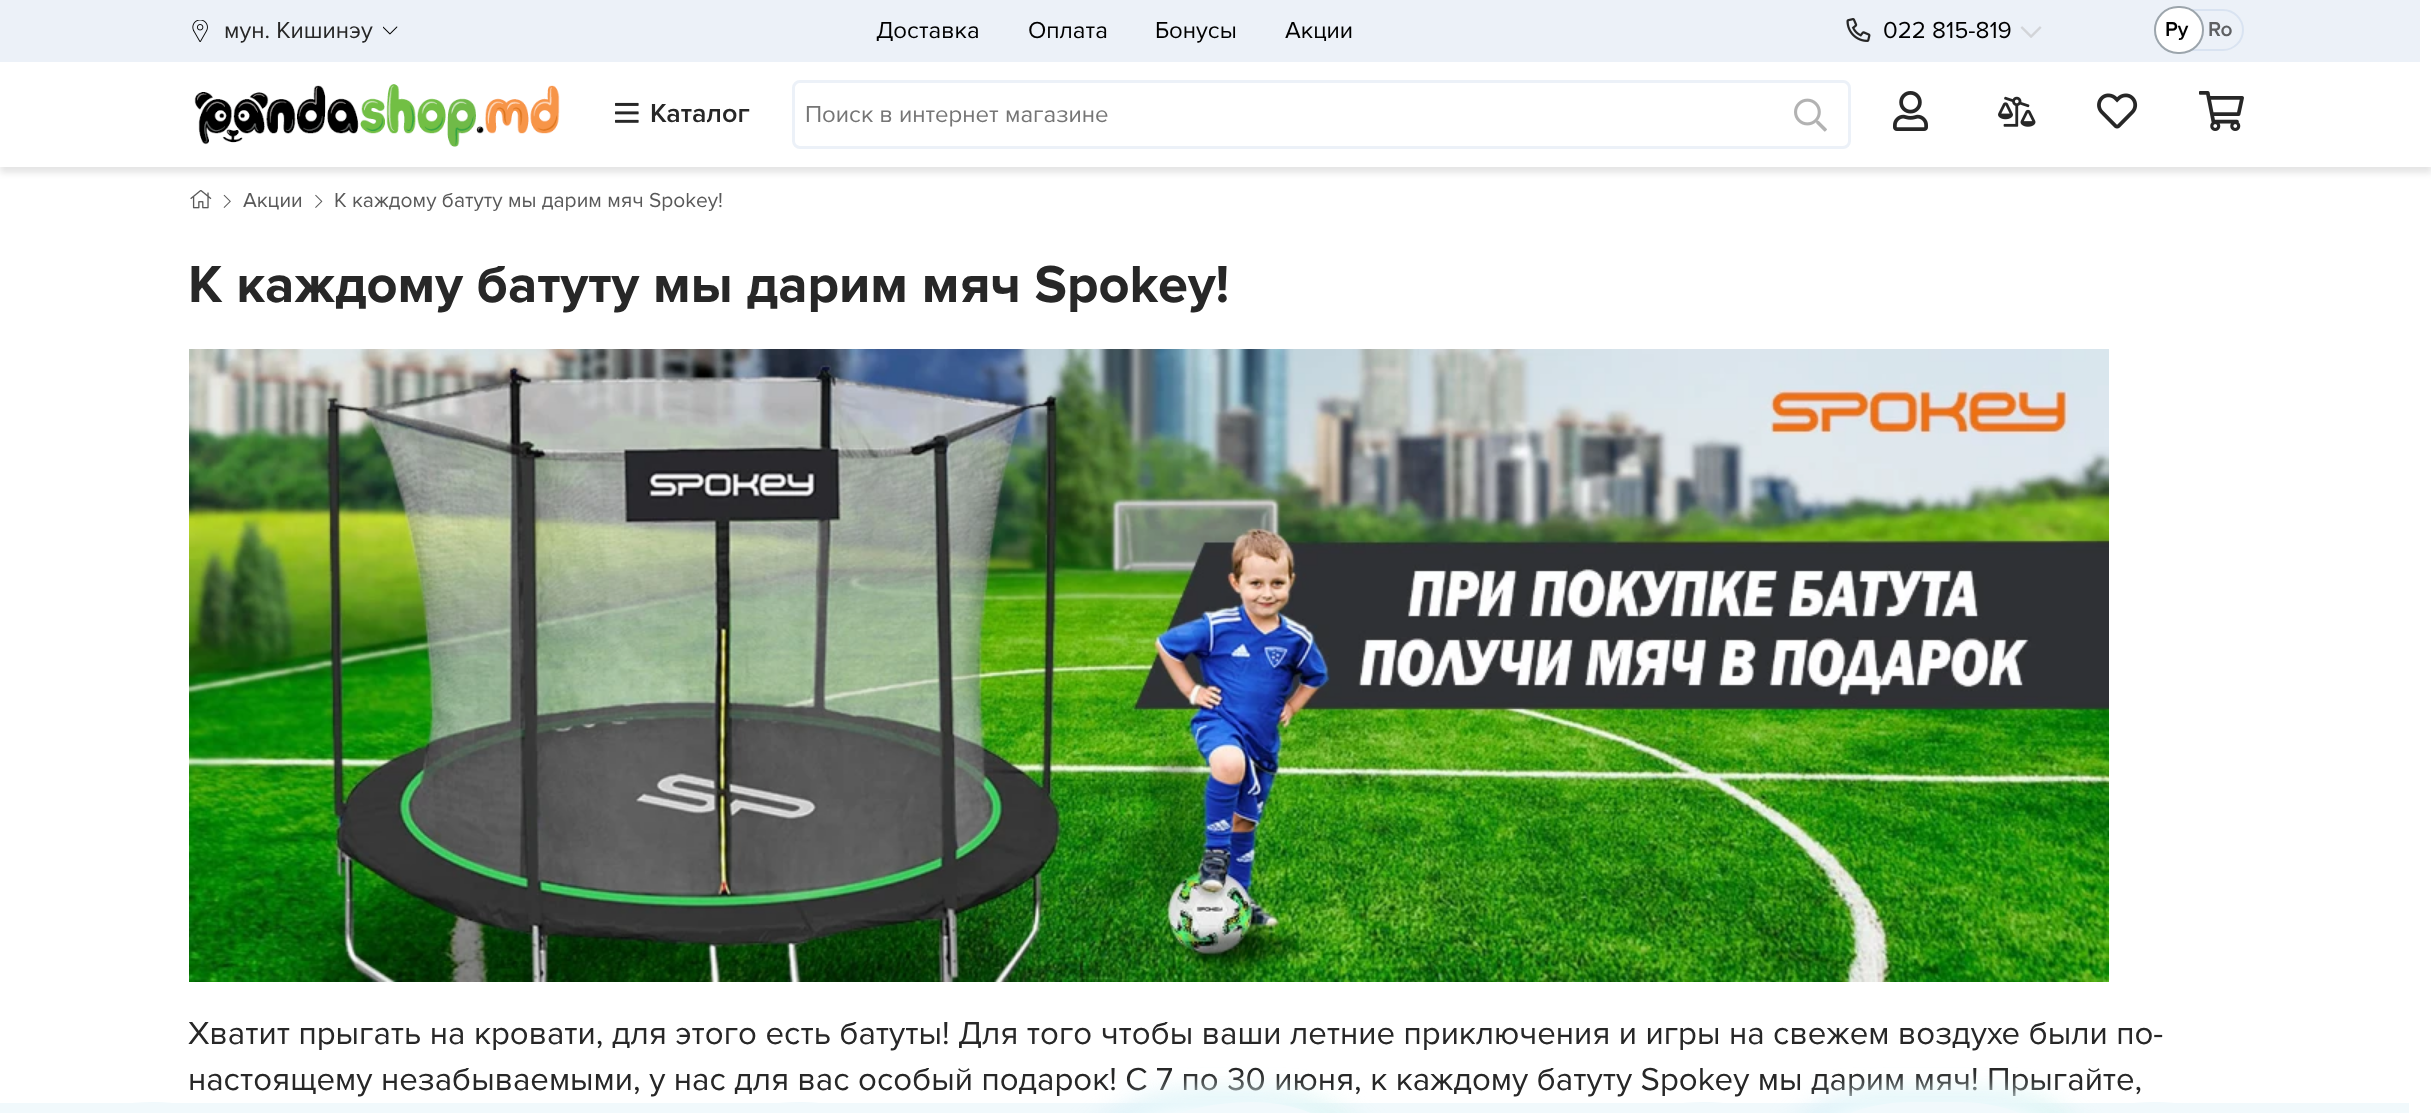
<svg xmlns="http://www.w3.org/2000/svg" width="2431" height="1113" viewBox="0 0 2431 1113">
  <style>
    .t1 { font: 24px Proxima Nova; fill: #272727; }
    .t2 { font: 24px Proxima Nova; fill: #000; }
    .t3 { font: 600 21px Proxima Nova; fill: #000; }
    .t4 { font: 600 21px Proxima Nova; fill: #5e6063; }
    .t5 { font: 600 27px Proxima Nova; fill: #272727; }
    .t6 { font: 24px Proxima Nova; fill: #757575; }
    .t7 { font: 21px Proxima Nova; fill: #595959; }
    .t8 { font: bold 54px Proxima Nova; fill: #272727; }
    .t9 { font: 33px Proxima Nova; fill: #272727; }
  </style>
  <defs>
    <clipPath id="clip1"><path d="M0 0H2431V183H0ZM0-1H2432V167H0Z" clip-rule="evenodd"/></clipPath>
  </defs>
  <rect width="100%" height="100%" fill="#fff"/>
  <rect x="0" y="0" width="2420" height="62" fill="#ecf1f8"/>
  <g clip-path="url(#clip1)">
    <rect x="0" y="5" width="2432" height="168" fill="#0000001a" filter="blur(3px)"/>
  </g>
  <image x="383" y="26" width="15" height="9" href="images/1.png"/>
  <image x="192" y="20" width="16" height="22" href="images/2.png"/>
  <text x="224" y="38" class="t1">мун. Кишинэу</text>
  <text x="876" y="38" class="t2">Доставка</text>
  <text x="1028" y="38" class="t2">Оплата</text>
  <text x="1155" y="38" class="t2">Бонусы</text>
  <text x="1285" y="38" class="t2">Акции</text>
  <image x="1846" y="18" width="25" height="24" href="images/3.png"/>
  <text x="1883" y="38" class="t2">022 815-819</text>
  <image x="2020" y="26" width="22" height="12" href="images/4.png"/>
  <rect x="2155" y="10" width="88" height="40" rx="20" fill="none" stroke="#d9e3f1" stroke-width="2"/>
  <rect x="2155" y="7" width="48" height="46" rx="23" fill="#fff" stroke="#9ca5ac" stroke-width="2"/>
  <text x="2165" y="36" class="t3">Ру</text>
  <text x="2208" y="36" class="t4">Ro</text>
  <rect x="23" y="166" width="2386" height="1" fill="#fff"/>
  <image x="194" y="84" width="366" height="63" href="images/5.png"/>
  <image x="615" y="102" width="24" height="21" href="images/6.png"/>
  <text x="650" y="122" class="t5">Каталог</text>
  <rect x="793.5" y="81.5" width="1056" height="66" rx="6.5" fill="none" stroke="#ecf1f8" stroke-width="3"/>
  <text x="805" y="122" class="t6">Поиск в интернет магазине</text>
  <image x="1794" y="98" width="33" height="34" href="images/7.png"/>
  <image x="1893" y="91" width="35" height="40" href="images/8.png"/>
  <image x="1998" y="96" width="38" height="31" href="images/9.png"/>
  <image x="2097" y="93" width="41" height="36" href="images/10.png"/>
  <image x="2199" y="91" width="45" height="40" href="images/11.png"/>
  <image x="190" y="190" width="22" height="19" href="images/12.png"/>
  <image x="223" y="194" width="8" height="14" href="images/13.png"/>
  <text x="243" y="207" class="t7">Акции</text>
  <image x="315" y="194" width="8" height="14" href="images/14.png"/>
  <text x="334" y="207" class="t7">К каждому батуту мы дарим мяч Spokey!</text>
  <text x="188" y="302" class="t8">К каждому батуту мы дарим мяч Spokey!</text>
  <image x="189" y="349" width="1920" height="633" href="images/15.png"/>
  <text x="188" y="1044" class="t9">Хватит прыгать на кровати, для этого есть батуты! Для того чтобы ваши летние приключения и игры на свежем воздухе были по-</text>
  <text x="188" y="1090" class="t9">настоящему незабываемыми, у нас для вас особый подарок! С 7 по 30 июня, к каждому батуту Spokey мы дарим мяч! Прыгайте,</text>
  <rect x="0" y="1103" width="2409" height="10" fill="#f1f9fc"/>
  <path d="M154 1102C211 1102 256 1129 256 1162V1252H0V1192C0 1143 69 1102 154 1102Z" fill="#f1f9fc"/>
  <path d="M801 1102C857 1102 903 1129 903 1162V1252H648V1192C648 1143 717 1102 801 1102Z" fill="#f1f9fc"/>
  <rect x="1115" y="1103" width="256" height="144" rx="89" fill="#c5f2ed" filter="blur(15px)"/>
  <rect x="1085" y="1103" width="256" height="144" rx="89" fill="#c8ebf8" filter="blur(15px)"/>
  <rect x="1100" y="1103" width="256" height="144" rx="89" fill="#fff" filter="blur(15px)"/>
  <path d="M1252 1102C1309 1102 1356 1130 1356 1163V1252H1100V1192C1100 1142 1168 1102 1252 1102Z" fill="#f1f9fc"/>
  <path d="M1705 1102C1762 1102 1808 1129 1808 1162V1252H1551V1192C1551 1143 1620 1102 1705 1102Z" fill="#f1f9fc"/>
  <path d="M2156 1102C2213 1102 2259 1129 2259 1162V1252H2002V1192C2002 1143 2071 1102 2156 1102Z" fill="#f1f9fc"/>
  <rect x="1823" y="1103" width="255" height="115" rx="60" fill="#c5f2ed" filter="blur(15px)"/>
  <rect x="1793" y="1103" width="255" height="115" rx="60" fill="#c8ebf8" filter="blur(15px)"/>
  <rect x="1808" y="1103" width="255" height="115" rx="60" fill="#fff" filter="blur(15px)"/>
  <path d="M1910 1102H1960C2017 1102 2062 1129 2062 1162V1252H1808V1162C1808 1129 1853 1102 1910 1102Z" fill="#f1f9fc"/>
</svg>
